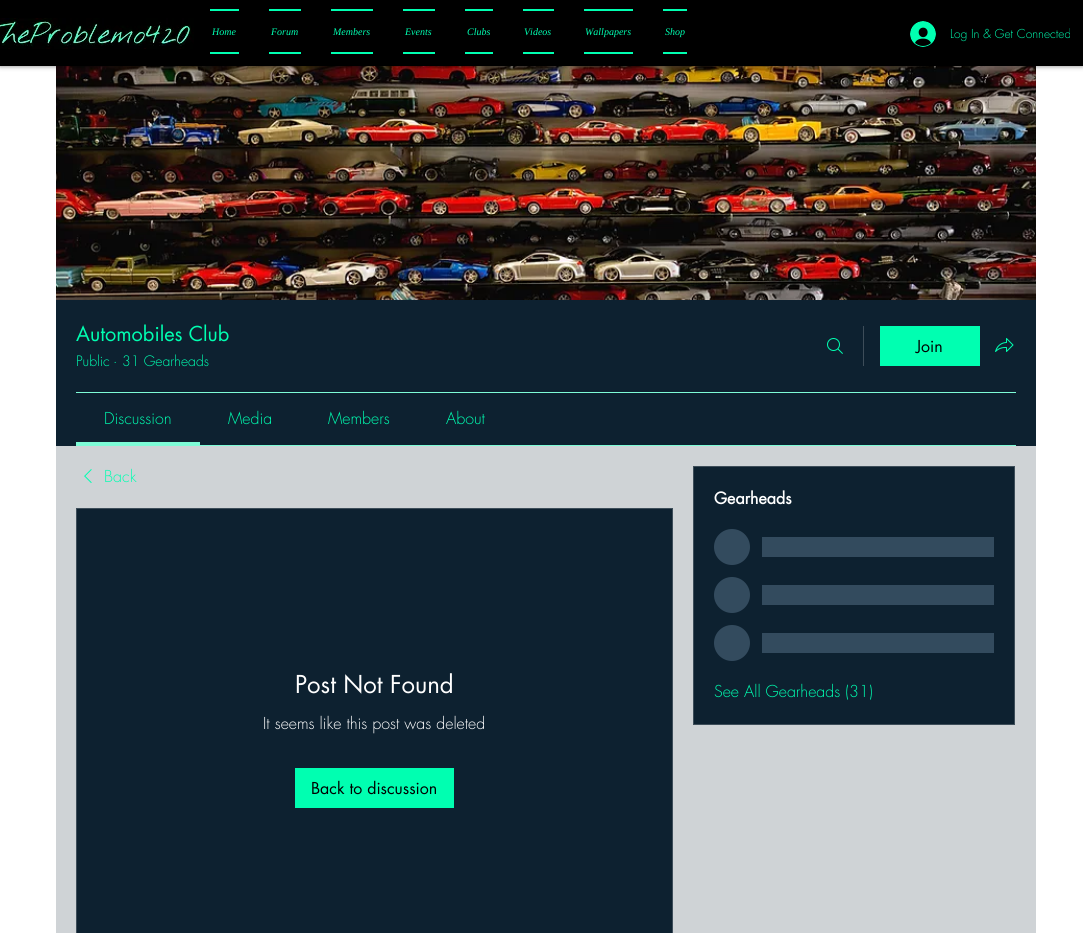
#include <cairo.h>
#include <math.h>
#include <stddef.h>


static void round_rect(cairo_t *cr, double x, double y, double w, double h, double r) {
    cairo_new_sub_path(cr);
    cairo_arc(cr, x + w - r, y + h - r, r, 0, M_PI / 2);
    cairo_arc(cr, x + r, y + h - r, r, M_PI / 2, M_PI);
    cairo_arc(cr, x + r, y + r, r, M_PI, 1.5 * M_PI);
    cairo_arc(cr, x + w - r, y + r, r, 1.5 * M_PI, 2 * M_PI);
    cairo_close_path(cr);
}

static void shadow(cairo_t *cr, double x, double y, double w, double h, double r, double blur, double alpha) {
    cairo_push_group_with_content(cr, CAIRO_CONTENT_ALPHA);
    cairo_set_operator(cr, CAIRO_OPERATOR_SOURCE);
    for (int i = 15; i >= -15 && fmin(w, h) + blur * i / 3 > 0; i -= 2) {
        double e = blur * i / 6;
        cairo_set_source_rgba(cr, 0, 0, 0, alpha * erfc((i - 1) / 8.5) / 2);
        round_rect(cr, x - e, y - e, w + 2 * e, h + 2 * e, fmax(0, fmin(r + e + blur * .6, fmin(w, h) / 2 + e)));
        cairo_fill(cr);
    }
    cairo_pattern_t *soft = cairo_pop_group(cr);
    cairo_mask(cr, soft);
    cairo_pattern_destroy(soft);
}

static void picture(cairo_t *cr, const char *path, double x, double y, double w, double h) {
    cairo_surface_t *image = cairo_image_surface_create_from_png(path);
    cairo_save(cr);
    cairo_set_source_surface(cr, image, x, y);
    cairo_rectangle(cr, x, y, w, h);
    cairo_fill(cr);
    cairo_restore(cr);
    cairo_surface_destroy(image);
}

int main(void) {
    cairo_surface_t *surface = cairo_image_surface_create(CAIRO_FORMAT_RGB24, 1083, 933);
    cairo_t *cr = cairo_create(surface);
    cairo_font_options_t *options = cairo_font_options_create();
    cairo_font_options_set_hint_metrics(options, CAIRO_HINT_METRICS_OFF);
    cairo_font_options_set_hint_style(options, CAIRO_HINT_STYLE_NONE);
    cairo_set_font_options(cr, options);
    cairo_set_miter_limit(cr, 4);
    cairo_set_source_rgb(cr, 1, 1, 1);
    cairo_paint(cr);
    picture(cr, "img3.png", 56, 66, 980, 234);
    cairo_set_source_rgb(cr, 0, 0, 0);
    shadow(cr, 0, 0, 1083, 66, 0, 2.5, 0.5);
    cairo_set_source_rgb(cr, 0, 0, 0);
    cairo_rectangle(cr, 0, 0, 1083, 66);
    cairo_fill(cr);
    picture(cr, "img1.png", 0, 18, 194, 31);
    cairo_set_source_rgb(cr, 0, 1, 0.694);
    cairo_rectangle(cr, 210, 9, 29, 2);
    cairo_fill(cr);
    cairo_rectangle(cr, 210, 52, 29, 2);
    cairo_fill(cr);
    cairo_select_font_face(cr, "Liberation Serif", CAIRO_FONT_SLANT_ITALIC, CAIRO_FONT_WEIGHT_NORMAL);
    cairo_set_font_size(cr, 10);
    cairo_move_to(cr, 212, 35);
    cairo_show_text(cr, "Home");
    cairo_rectangle(cr, 269, 9, 32, 2);
    cairo_fill(cr);
    cairo_rectangle(cr, 269, 52, 32, 2);
    cairo_fill(cr);
    cairo_move_to(cr, 271, 35);
    cairo_show_text(cr, "Forum");
    cairo_rectangle(cr, 331, 9, 42, 2);
    cairo_fill(cr);
    cairo_rectangle(cr, 331, 52, 42, 2);
    cairo_fill(cr);
    cairo_move_to(cr, 333, 35);
    cairo_show_text(cr, "Members");
    cairo_rectangle(cr, 403, 9, 32, 2);
    cairo_fill(cr);
    cairo_rectangle(cr, 403, 52, 32, 2);
    cairo_fill(cr);
    cairo_move_to(cr, 405, 35);
    cairo_show_text(cr, "Events");
    cairo_rectangle(cr, 465, 9, 28, 2);
    cairo_fill(cr);
    cairo_rectangle(cr, 465, 52, 28, 2);
    cairo_fill(cr);
    cairo_move_to(cr, 467, 35);
    cairo_show_text(cr, "Clubs");
    cairo_rectangle(cr, 523, 9, 31, 2);
    cairo_fill(cr);
    cairo_rectangle(cr, 523, 52, 31, 2);
    cairo_fill(cr);
    cairo_move_to(cr, 524, 35);
    cairo_show_text(cr, "Videos");
    cairo_rectangle(cr, 584, 9, 49, 2);
    cairo_fill(cr);
    cairo_rectangle(cr, 584, 52, 49, 2);
    cairo_fill(cr);
    cairo_move_to(cr, 585, 35);
    cairo_show_text(cr, "Wallpapers");
    cairo_rectangle(cr, 663, 9, 24, 2);
    cairo_fill(cr);
    cairo_rectangle(cr, 663, 52, 24, 2);
    cairo_fill(cr);
    cairo_move_to(cr, 665, 35);
    cairo_show_text(cr, "Shop");
    picture(cr, "img2.png", 910, 21, 26, 26);
    cairo_select_font_face(cr, "futura Light", CAIRO_FONT_SLANT_NORMAL, CAIRO_FONT_WEIGHT_NORMAL);
    cairo_set_font_size(cr, 12);
    cairo_move_to(cr, 950, 38);
    cairo_show_text(cr, "Log In & Get Connected");
    cairo_set_source_rgb(cr, 0.812, 0.827, 0.839);
    cairo_rectangle(cr, 56, 446, 980, 487);
    cairo_fill(cr);
    cairo_set_source_rgb(cr, 0.051, 0.129, 0.188);
    cairo_rectangle(cr, 56, 300, 980, 146);
    cairo_fill(cr);
    cairo_select_font_face(cr, "futura", CAIRO_FONT_SLANT_NORMAL, CAIRO_FONT_WEIGHT_NORMAL);
    cairo_set_font_size(cr, 20);
    cairo_set_source_rgb(cr, 0, 1, 0.694);
    cairo_move_to(cr, 76, 341);
    cairo_show_text(cr, "Automobiles Club");
    cairo_select_font_face(cr, "futura Light", CAIRO_FONT_SLANT_NORMAL, CAIRO_FONT_WEIGHT_NORMAL);
    cairo_set_font_size(cr, 14);
    cairo_move_to(cr, 76, 366);
    cairo_show_text(cr, "Public");
    cairo_move_to(cr, 113, 366);
    cairo_show_text(cr, "·");
    cairo_move_to(cr, 122, 366);
    cairo_show_text(cr, "31 Gearheads");
    picture(cr, "img4.png", 827, 338, 16, 16);
    cairo_set_source_rgb(cr, 0.239, 0.302, 0.349);
    cairo_rectangle(cr, 863, 326, 1, 40);
    cairo_fill(cr);
    cairo_set_source_rgb(cr, 0, 1, 0.694);
    cairo_rectangle(cr, 880, 326, 100, 40);
    cairo_fill(cr);
    cairo_select_font_face(cr, "futura", CAIRO_FONT_SLANT_NORMAL, CAIRO_FONT_WEIGHT_NORMAL);
    cairo_set_font_size(cr, 16);
    cairo_set_source_rgb(cr, 0, 0, 0);
    cairo_move_to(cr, 916, 352);
    cairo_show_text(cr, "Join");
    picture(cr, "img5.png", 995, 338, 19, 14);
    cairo_set_source_rgb(cr, 0.494, 0.988, 0.843);
    cairo_rectangle(cr, 76, 392, 940, 1);
    cairo_fill(cr);
    cairo_rectangle(cr, 76, 445, 940, 1);
    cairo_fill(cr);
    cairo_rectangle(cr, 76, 442, 124, 3);
    cairo_fill(cr);
    cairo_select_font_face(cr, "futura Light", CAIRO_FONT_SLANT_NORMAL, CAIRO_FONT_WEIGHT_NORMAL);
    cairo_set_source_rgb(cr, 0, 1, 0.694);
    cairo_move_to(cr, 104, 424);
    cairo_show_text(cr, "Discussion");
    cairo_move_to(cr, 228, 424);
    cairo_show_text(cr, "Media");
    cairo_move_to(cr, 328, 424);
    cairo_show_text(cr, "Members");
    cairo_move_to(cr, 446, 424);
    cairo_show_text(cr, "About");
    picture(cr, "img6.png", 84, 469, 8, 14);
    cairo_move_to(cr, 104, 482);
    cairo_show_text(cr, "Back");
    cairo_set_source_rgb(cr, 0.051, 0.129, 0.188);
    cairo_rectangle(cr, 76.5, 508.5, 596, 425);
    cairo_fill_preserve(cr);
    cairo_set_source_rgb(cr, 0.239, 0.302, 0.349);
    cairo_set_line_width(cr, 1);
    cairo_stroke(cr);
    cairo_select_font_face(cr, "futura", CAIRO_FONT_SLANT_NORMAL, CAIRO_FONT_WEIGHT_NORMAL);
    cairo_set_font_size(cr, 24);
    cairo_set_source_rgb(cr, 1, 1, 1);
    cairo_move_to(cr, 295, 693);
    cairo_show_text(cr, "Post Not Found");
    cairo_select_font_face(cr, "futura Light", CAIRO_FONT_SLANT_NORMAL, CAIRO_FONT_WEIGHT_NORMAL);
    cairo_set_font_size(cr, 16);
    cairo_move_to(cr, 263, 729);
    cairo_show_text(cr, "It seems like this post was deleted");
    cairo_set_source_rgb(cr, 0, 1, 0.694);
    cairo_rectangle(cr, 295, 768, 159, 40);
    cairo_fill(cr);
    cairo_select_font_face(cr, "futura", CAIRO_FONT_SLANT_NORMAL, CAIRO_FONT_WEIGHT_NORMAL);
    cairo_set_source_rgb(cr, 0, 0, 0);
    cairo_move_to(cr, 311, 794);
    cairo_show_text(cr, "Back to discussion");
    cairo_set_source_rgb(cr, 0.051, 0.129, 0.188);
    cairo_rectangle(cr, 693.5, 466.5, 321, 258);
    cairo_fill_preserve(cr);
    cairo_set_source_rgb(cr, 0.239, 0.302, 0.349);
    cairo_stroke(cr);
    cairo_select_font_face(cr, "futura", CAIRO_FONT_SLANT_NORMAL, CAIRO_FONT_WEIGHT_BOLD);
    cairo_set_source_rgb(cr, 1, 1, 1);
    cairo_move_to(cr, 714, 504);
    cairo_show_text(cr, "Gearheads");
    cairo_set_source_rgb(cr, 0.2, 0.294, 0.369);
    cairo_new_path(cr);
    cairo_arc(cr, 732, 547, 18, 0, 2 * M_PI);
    cairo_fill(cr);
    cairo_rectangle(cr, 762, 537, 232, 20);
    cairo_fill(cr);
    cairo_arc(cr, 732, 595, 18, 0, 2 * M_PI);
    cairo_fill(cr);
    cairo_rectangle(cr, 762, 585, 232, 20);
    cairo_fill(cr);
    cairo_arc(cr, 732, 643, 18, 0, 2 * M_PI);
    cairo_fill(cr);
    cairo_rectangle(cr, 762, 633, 232, 20);
    cairo_fill(cr);
    cairo_select_font_face(cr, "futura Light", CAIRO_FONT_SLANT_NORMAL, CAIRO_FONT_WEIGHT_NORMAL);
    cairo_set_source_rgb(cr, 0, 1, 0.694);
    cairo_move_to(cr, 714, 697);
    cairo_show_text(cr, "See All Gearheads (31)");
    cairo_surface_write_to_png(surface, "page.png");
    cairo_font_options_destroy(options);
    cairo_destroy(cr);
    cairo_surface_destroy(surface);
    return 0;
}
